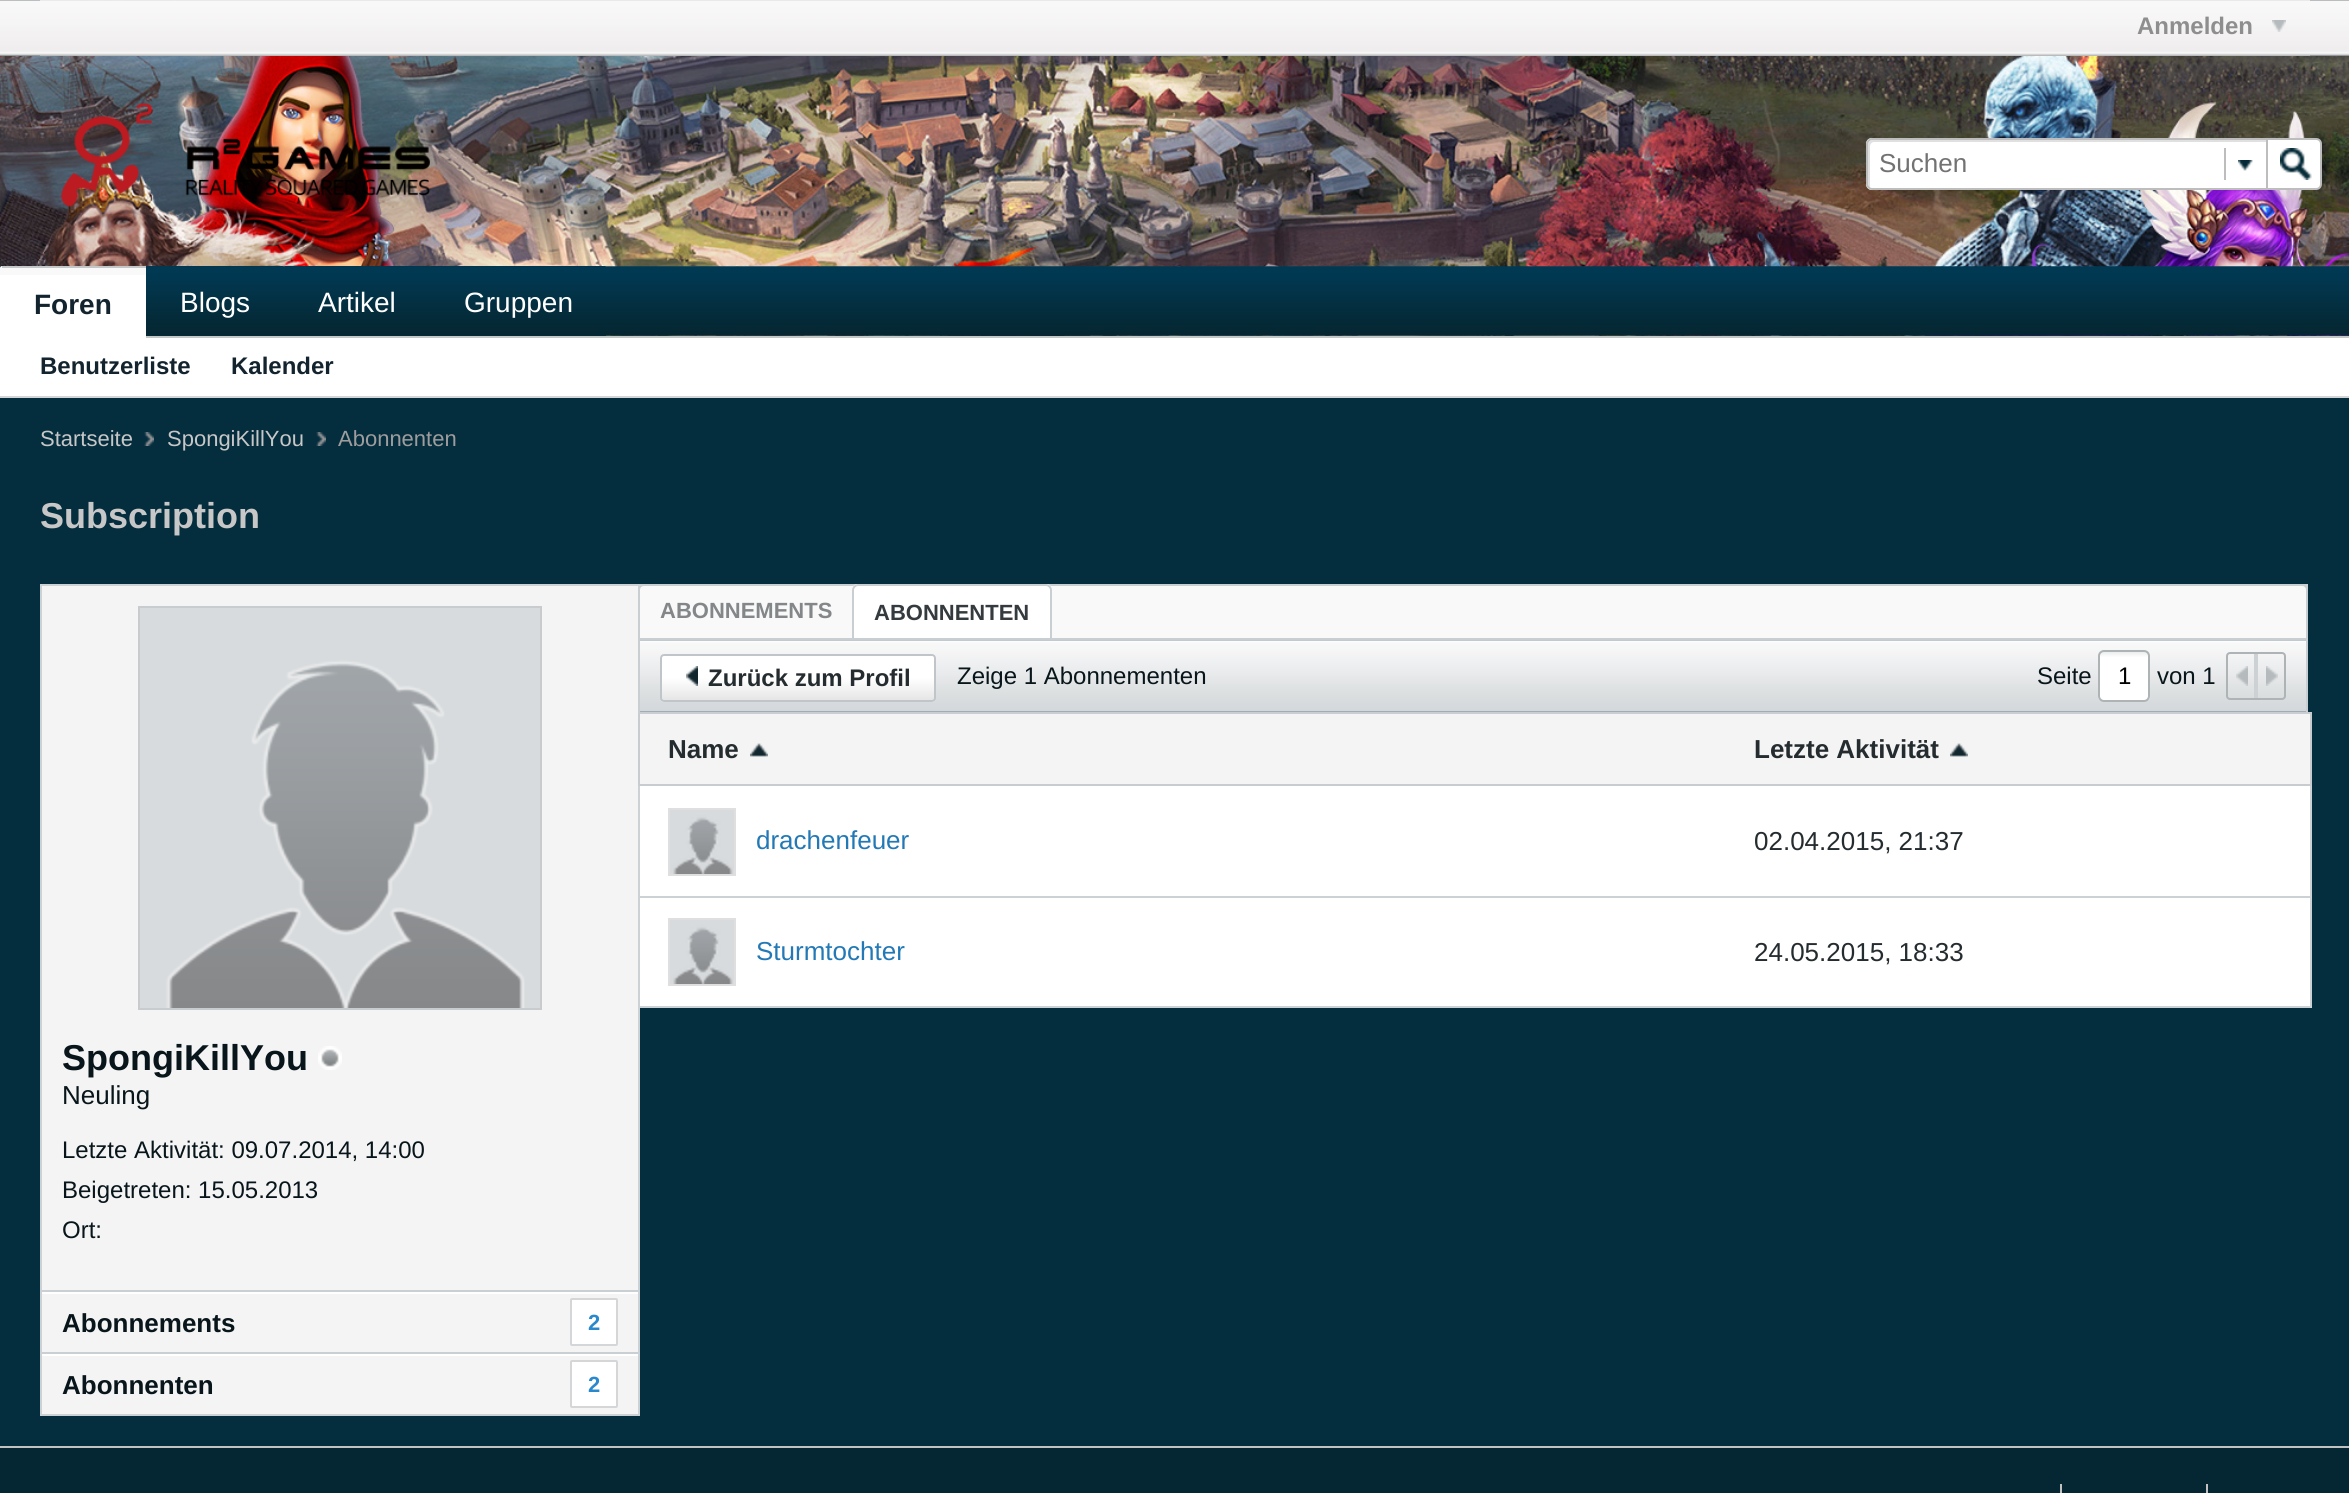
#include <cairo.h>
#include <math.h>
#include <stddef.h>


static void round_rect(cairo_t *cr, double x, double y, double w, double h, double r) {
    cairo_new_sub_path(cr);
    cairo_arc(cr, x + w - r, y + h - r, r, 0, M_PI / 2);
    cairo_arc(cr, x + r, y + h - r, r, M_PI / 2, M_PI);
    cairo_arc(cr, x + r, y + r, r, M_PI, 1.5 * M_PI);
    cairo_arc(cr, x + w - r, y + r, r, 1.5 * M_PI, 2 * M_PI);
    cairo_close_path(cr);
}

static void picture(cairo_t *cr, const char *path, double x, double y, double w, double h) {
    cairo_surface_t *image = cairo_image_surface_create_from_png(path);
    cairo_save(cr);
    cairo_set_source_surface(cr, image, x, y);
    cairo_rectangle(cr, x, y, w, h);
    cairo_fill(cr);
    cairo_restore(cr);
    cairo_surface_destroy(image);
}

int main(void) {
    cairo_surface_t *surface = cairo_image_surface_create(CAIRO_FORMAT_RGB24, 2349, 1493);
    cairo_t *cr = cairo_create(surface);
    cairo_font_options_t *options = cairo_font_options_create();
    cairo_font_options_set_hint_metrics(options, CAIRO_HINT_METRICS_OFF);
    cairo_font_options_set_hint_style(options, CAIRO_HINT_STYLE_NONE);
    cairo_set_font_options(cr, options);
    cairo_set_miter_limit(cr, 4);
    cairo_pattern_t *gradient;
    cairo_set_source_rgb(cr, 1, 1, 1);
    cairo_paint(cr);
    picture(cr, "img1.png", 0, 0, 2349, 56);
    picture(cr, "img2.png", 0, 0, 2349, 56);
    picture(cr, "img3.png", 40, 0, 2270, 56);
    cairo_select_font_face(cr, "Liberation Sans", CAIRO_FONT_SLANT_NORMAL, CAIRO_FONT_WEIGHT_BOLD);
    cairo_set_font_size(cr, 24);
    cairo_set_source_rgb(cr, 0.557, 0.557, 0.557);
    cairo_move_to(cr, 2137, 34);
    cairo_show_text(cr, "Anmelden");
    picture(cr, "img4.png", 2272, 20, 14, 12);
    picture(cr, "img5.png", 0, 56, 2349, 280);
    picture(cr, "img6.png", 60, 103, 370, 104);
    cairo_set_source_rgb(cr, 1, 1, 1);
    cairo_new_path(cr);
    cairo_move_to(cr, 1872, 138);
    cairo_line_to(cr, 2266, 138);
    cairo_line_to(cr, 2266, 190);
    cairo_line_to(cr, 1872, 190);
    cairo_curve_to(cr, 1868.5, 190, 1866, 187.5, 1866, 184);
    cairo_line_to(cr, 1866, 144);
    cairo_curve_to(cr, 1866, 140.5, 1868.5, 138, 1872, 138);
    cairo_close_path(cr);
    cairo_fill(cr);
    cairo_set_source_rgb(cr, 0.878, 0.878, 0.878);
    cairo_new_path(cr);
    cairo_move_to(cr, 1874, 142);
    cairo_line_to(cr, 2266, 142);
    cairo_line_to(cr, 2266, 140);
    cairo_line_to(cr, 1872, 140);
    cairo_curve_to(cr, 1870, 140, 1868, 142, 1868, 144);
    cairo_line_to(cr, 1868, 184);
    cairo_curve_to(cr, 1868, 186, 1869, 187, 1870, 188);
    cairo_line_to(cr, 1870, 186);
    cairo_line_to(cr, 1870, 146);
    cairo_curve_to(cr, 1870, 144, 1872, 142, 1874, 142);
    cairo_close_path(cr);
    cairo_fill(cr);
    cairo_set_source_rgb(cr, 0.741, 0.741, 0.741);
    cairo_set_fill_rule(cr, CAIRO_FILL_RULE_EVEN_ODD);
    cairo_new_path(cr);
    cairo_move_to(cr, 1872, 138);
    cairo_line_to(cr, 2266, 138);
    cairo_line_to(cr, 2266, 190);
    cairo_line_to(cr, 1872, 190);
    cairo_curve_to(cr, 1869, 190, 1866, 187, 1866, 184);
    cairo_line_to(cr, 1866, 144);
    cairo_curve_to(cr, 1866, 141, 1869, 138, 1872, 138);
    cairo_close_path(cr);
    cairo_move_to(cr, 1872, 140);
    cairo_line_to(cr, 2266, 140);
    cairo_line_to(cr, 2266, 188);
    cairo_line_to(cr, 1872, 188);
    cairo_curve_to(cr, 1870, 188, 1868, 186, 1868, 184);
    cairo_line_to(cr, 1868, 144);
    cairo_curve_to(cr, 1868, 142, 1870, 140, 1872, 140);
    cairo_close_path(cr);
    cairo_fill(cr);
    cairo_select_font_face(cr, "Liberation Sans", CAIRO_FONT_SLANT_NORMAL, CAIRO_FONT_WEIGHT_NORMAL);
    cairo_set_font_size(cr, 26);
    cairo_set_source_rgb(cr, 0.447, 0.447, 0.447);
    cairo_move_to(cr, 1879, 172);
    cairo_show_text(cr, "Suchen");
    cairo_set_source_rgb(cr, 0.741, 0.741, 0.741);
    cairo_rectangle(cr, 2224, 148, 2, 32);
    cairo_fill(cr);
    picture(cr, "img7.png", 2238, 160, 15, 11);
    cairo_set_source_rgb(cr, 1, 1, 1);
    cairo_new_path(cr);
    cairo_move_to(cr, 2267, 139);
    cairo_line_to(cr, 2316, 139);
    cairo_curve_to(cr, 2319, 139, 2321, 141, 2321, 144);
    cairo_line_to(cr, 2321, 184);
    cairo_curve_to(cr, 2321, 187, 2319, 189, 2316, 189);
    cairo_line_to(cr, 2267, 189);
    cairo_close_path(cr);
    cairo_fill_preserve(cr);
    cairo_set_source_rgb(cr, 0.741, 0.741, 0.741);
    cairo_stroke(cr);
    picture(cr, "img8.png", 2280, 148, 32, 32);
    picture(cr, "img9.png", 0, 266, 2349, 70);
    cairo_set_source_rgb(cr, 0.769, 0.78, 0.784);
    cairo_rectangle(cr, 146, 336, 2203, 2);
    cairo_fill(cr);
    cairo_set_source_rgb(cr, 1, 1, 1);
    cairo_new_path(cr);
    cairo_move_to(cr, 2, 266);
    cairo_line_to(cr, 144, 266);
    cairo_curve_to(cr, 145, 266, 146, 267, 146, 268);
    cairo_line_to(cr, 146, 338);
    cairo_line_to(cr, 0, 338);
    cairo_line_to(cr, 0, 268);
    cairo_curve_to(cr, 0, 267, 1, 266, 2, 266);
    cairo_close_path(cr);
    cairo_fill(cr);
    cairo_set_source_rgb(cr, 0.973, 0.973, 0.973);
    cairo_rectangle(cr, 0, 268, 146, 7);
    cairo_fill(cr);
    cairo_set_source_rgb(cr, 0.769, 0.78, 0.784);
    cairo_rectangle(cr, 2, 266, 144, 2);
    cairo_fill(cr);
    cairo_select_font_face(cr, "Liberation Sans", CAIRO_FONT_SLANT_NORMAL, CAIRO_FONT_WEIGHT_BOLD);
    cairo_set_font_size(cr, 28);
    cairo_set_source_rgb(cr, 0.075, 0.141, 0.184);
    cairo_move_to(cr, 34, 314);
    cairo_show_text(cr, "Foren");
    cairo_set_source_rgb(cr, 0.012, 0.192, 0.271);
    cairo_new_path(cr);
    cairo_move_to(cr, 148, 266);
    cairo_line_to(cr, 282, 266);
    cairo_curve_to(cr, 283, 266, 284, 267, 284, 268);
    cairo_line_to(cr, 284, 336);
    cairo_line_to(cr, 146, 336);
    cairo_line_to(cr, 146, 268);
    cairo_curve_to(cr, 146, 267, 147, 266, 148, 266);
    cairo_close_path(cr);
    cairo_fill(cr);
    picture(cr, "img10.png", 146, 266, 138, 70);
    cairo_select_font_face(cr, "Liberation Sans", CAIRO_FONT_SLANT_NORMAL, CAIRO_FONT_WEIGHT_NORMAL);
    cairo_set_source_rgb(cr, 1, 1, 1);
    cairo_move_to(cr, 180, 312);
    cairo_show_text(cr, "Blogs");
    cairo_set_source_rgb(cr, 0.012, 0.192, 0.271);
    cairo_new_path(cr);
    cairo_move_to(cr, 286, 266);
    cairo_line_to(cr, 428, 266);
    cairo_curve_to(cr, 429, 266, 430, 267, 430, 268);
    cairo_line_to(cr, 430, 336);
    cairo_line_to(cr, 284, 336);
    cairo_line_to(cr, 284, 268);
    cairo_curve_to(cr, 284, 267, 285, 266, 286, 266);
    cairo_close_path(cr);
    cairo_fill(cr);
    picture(cr, "img11.png", 284, 266, 146, 70);
    cairo_set_source_rgb(cr, 1, 1, 1);
    cairo_move_to(cr, 318, 312);
    cairo_show_text(cr, "Artikel");
    cairo_set_source_rgb(cr, 0.012, 0.192, 0.271);
    cairo_new_path(cr);
    cairo_move_to(cr, 432, 266);
    cairo_line_to(cr, 604, 266);
    cairo_curve_to(cr, 605, 266, 606, 267, 606, 268);
    cairo_line_to(cr, 606, 336);
    cairo_line_to(cr, 430, 336);
    cairo_line_to(cr, 430, 268);
    cairo_curve_to(cr, 430, 267, 431, 266, 432, 266);
    cairo_close_path(cr);
    cairo_fill(cr);
    picture(cr, "img12.png", 430, 266, 176, 70);
    cairo_set_source_rgb(cr, 1, 1, 1);
    cairo_move_to(cr, 464, 312);
    cairo_show_text(cr, "Gruppen");
    cairo_set_source_rgb(cr, 0.827, 0.835, 0.839);
    cairo_rectangle(cr, 0, 396, 2349, 2);
    cairo_fill(cr);
    cairo_select_font_face(cr, "Liberation Sans", CAIRO_FONT_SLANT_NORMAL, CAIRO_FONT_WEIGHT_BOLD);
    cairo_set_font_size(cr, 24);
    cairo_set_source_rgb(cr, 0.075, 0.141, 0.184);
    cairo_move_to(cr, 40, 374);
    cairo_show_text(cr, "Benutzerliste");
    cairo_move_to(cr, 231, 374);
    cairo_show_text(cr, "Kalender");
    cairo_set_source_rgb(cr, 0.016, 0.176, 0.243);
    cairo_rectangle(cr, 0, 398, 2349, 1048);
    cairo_fill(cr);
    cairo_select_font_face(cr, "Liberation Sans", CAIRO_FONT_SLANT_NORMAL, CAIRO_FONT_WEIGHT_NORMAL);
    cairo_set_font_size(cr, 22);
    cairo_set_source_rgb(cr, 0.78, 0.78, 0.78);
    cairo_move_to(cr, 40, 446);
    cairo_show_text(cr, "Startseite");
    picture(cr, "img13.png", 144, 432, 10, 14);
    cairo_move_to(cr, 167, 446);
    cairo_show_text(cr, "SpongiKillYou");
    picture(cr, "img13.png", 316, 432, 10, 14);
    cairo_set_source_rgb(cr, 0.62, 0.616, 0.616);
    cairo_move_to(cr, 338, 446);
    cairo_show_text(cr, "Abonnenten");
    cairo_select_font_face(cr, "Liberation Sans", CAIRO_FONT_SLANT_NORMAL, CAIRO_FONT_WEIGHT_BOLD);
    cairo_set_font_size(cr, 36);
    cairo_set_source_rgb(cr, 0.78, 0.78, 0.78);
    cairo_move_to(cr, 40, 528);
    cairo_show_text(cr, "Subscription");
    cairo_rectangle(cr, 41, 585, 598, 830);
    cairo_set_source_rgb(cr, 0.8, 0.82, 0.835);
    cairo_stroke(cr);
    cairo_rectangle(cr, 639, 585, 1668, 422);
    cairo_stroke(cr);
    cairo_set_source_rgb(cr, 0.976, 0.976, 0.976);
    cairo_new_path(cr);
    cairo_move_to(cr, 644, 585);
    cairo_line_to(cr, 2302, 585);
    cairo_curve_to(cr, 2305, 585, 2307, 587, 2307, 590);
    cairo_line_to(cr, 2307, 639);
    cairo_line_to(cr, 639, 639);
    cairo_line_to(cr, 639, 590);
    cairo_curve_to(cr, 639, 587, 641, 585, 644, 585);
    cairo_close_path(cr);
    cairo_fill_preserve(cr);
    cairo_set_source_rgb(cr, 0.788, 0.808, 0.824);
    cairo_stroke(cr);
    cairo_set_font_size(cr, 22);
    cairo_set_source_rgb(cr, 0.514, 0.529, 0.537);
    cairo_move_to(cr, 660, 618);
    cairo_show_text(cr, "ABONNEMENTS");
    cairo_set_source_rgb(cr, 1, 1, 1);
    cairo_new_path(cr);
    cairo_move_to(cr, 858, 584);
    cairo_line_to(cr, 1046, 584);
    cairo_curve_to(cr, 1049.5, 584, 1052, 586.5, 1052, 590);
    cairo_line_to(cr, 1052, 638);
    cairo_line_to(cr, 852, 638);
    cairo_line_to(cr, 852, 590);
    cairo_curve_to(cr, 852, 586.5, 854.5, 584, 858, 584);
    cairo_close_path(cr);
    cairo_fill(cr);
    cairo_set_source_rgb(cr, 0.788, 0.808, 0.824);
    cairo_new_path(cr);
    cairo_move_to(cr, 858, 584);
    cairo_line_to(cr, 1046, 584);
    cairo_curve_to(cr, 1049, 584, 1052, 587, 1052, 590);
    cairo_line_to(cr, 1052, 638);
    cairo_line_to(cr, 852, 638);
    cairo_line_to(cr, 852, 590);
    cairo_curve_to(cr, 852, 587, 855, 584, 858, 584);
    cairo_close_path(cr);
    cairo_move_to(cr, 858, 586);
    cairo_line_to(cr, 1046, 586);
    cairo_curve_to(cr, 1048, 586, 1050, 588, 1050, 590);
    cairo_line_to(cr, 1050, 638);
    cairo_line_to(cr, 854, 638);
    cairo_line_to(cr, 854, 590);
    cairo_curve_to(cr, 854, 588, 856, 586, 858, 586);
    cairo_close_path(cr);
    cairo_fill(cr);
    cairo_set_source_rgb(cr, 0.204, 0.227, 0.239);
    cairo_move_to(cr, 874, 620);
    cairo_show_text(cr, "ABONNENTEN");
    picture(cr, "img14.png", 640, 640, 1666, 72);
    cairo_set_source_rgb(cr, 0.957, 0.957, 0.957);
    cairo_rectangle(cr, 639, 713, 1672, 72);
    cairo_fill_preserve(cr);
    cairo_set_source_rgb(cr, 0.784, 0.8, 0.808);
    cairo_stroke(cr);
    cairo_rectangle(cr, 639, 639, 1668, 74);
    cairo_set_source_rgb(cr, 0.788, 0.808, 0.824);
    cairo_stroke(cr);
    cairo_set_source_rgb(cr, 1, 1, 1);
    round_rect(cr, 660, 654, 276, 48, 4);
    cairo_fill(cr);
    gradient = cairo_pattern_create_linear(798, 700, 798, 656);
    cairo_pattern_add_color_stop_rgba(gradient, 0, 0, 0, 0, 0.1);
    cairo_pattern_add_color_stop_rgba(gradient, 0.5, 0, 0, 0, 0);
    cairo_pattern_add_color_stop_rgba(gradient, 0.5, 1, 1, 1, 0);
    cairo_pattern_add_color_stop_rgba(gradient, 1, 1, 1, 1, 0.7);
    cairo_set_source(cr, gradient);
    cairo_pattern_destroy(gradient);
    cairo_rectangle(cr, 660, 656, 276, 44);
    cairo_fill(cr);
    round_rect(cr, 661, 655, 274, 46, 3);
    cairo_set_source_rgb(cr, 0.749, 0.773, 0.788);
    cairo_stroke(cr);
    picture(cr, "img15.png", 686, 666, 12, 20);
    cairo_set_font_size(cr, 24);
    cairo_set_source_rgb(cr, 0.145, 0.173, 0.184);
    cairo_move_to(cr, 708, 686);
    cairo_show_text(cr, "Zurück zum Profil");
    cairo_select_font_face(cr, "Liberation Sans", CAIRO_FONT_SLANT_NORMAL, CAIRO_FONT_WEIGHT_NORMAL);
    cairo_set_source_rgb(cr, 0.035, 0.086, 0.106);
    cairo_move_to(cr, 957, 684);
    cairo_show_text(cr, "Zeige 1 Abonnementen");
    cairo_move_to(cr, 2037, 684);
    cairo_show_text(cr, "Seite");
    cairo_save(cr);
    cairo_set_fill_rule(cr, CAIRO_FILL_RULE_WINDING);
    round_rect(cr, 2098, 650, 52, 52, 6);
    cairo_clip(cr);
    gradient = cairo_pattern_create_linear(2124, 652, 2124, 700);
    cairo_pattern_add_color_stop_rgba(gradient, 0.01, 0.929, 0.933, 0.937, 1);
    cairo_pattern_add_color_stop_rgba(gradient, 0.11, 1, 1, 1, 1);
    cairo_set_source(cr, gradient);
    cairo_pattern_destroy(gradient);
    cairo_rectangle(cr, 2098, 652, 52, 48);
    cairo_fill(cr);
    cairo_restore(cr);
    round_rect(cr, 2099, 651, 50, 50, 5);
    cairo_set_source_rgb(cr, 0.682, 0.702, 0.714);
    cairo_stroke(cr);
    cairo_set_source_rgb(cr, 0, 0, 0);
    cairo_move_to(cr, 2118, 684);
    cairo_show_text(cr, "1");
    cairo_set_source_rgb(cr, 0.035, 0.086, 0.106);
    cairo_move_to(cr, 2157, 684);
    cairo_show_text(cr, "von 1");
    round_rect(cr, 2227, 653, 58, 46, 3);
    cairo_set_source_rgb(cr, 0.682, 0.702, 0.714);
    cairo_stroke(cr);
    cairo_set_source_rgb(cr, 0.804, 0.82, 0.831);
    cairo_rectangle(cr, 2254, 654, 4, 44);
    cairo_fill(cr);
    picture(cr, "img16.png", 2236, 666, 12, 20);
    picture(cr, "img17.png", 2266, 666, 12, 20);
    cairo_select_font_face(cr, "Liberation Sans", CAIRO_FONT_SLANT_NORMAL, CAIRO_FONT_WEIGHT_BOLD);
    cairo_set_font_size(cr, 26);
    cairo_set_source_rgb(cr, 0.145, 0.173, 0.184);
    cairo_move_to(cr, 668, 758);
    cairo_show_text(cr, "Name");
    picture(cr, "img18.png", 750, 743, 18, 14);
    cairo_move_to(cr, 1754, 758);
    cairo_show_text(cr, "Letzte Aktivität");
    picture(cr, "img18.png", 1950, 743, 18, 14);
    cairo_set_source_rgb(cr, 0.8, 0.82, 0.835);
    cairo_rectangle(cr, 2310, 786, 2, 222);
    cairo_fill(cr);
    cairo_rectangle(cr, 2308, 1006, 4, 2);
    cairo_fill(cr);
    cairo_set_source_rgb(cr, 1, 1, 1);
    cairo_rectangle(cr, 640, 786, 1670, 110);
    cairo_fill(cr);
    cairo_rectangle(cr, 669, 809, 66, 66);
    cairo_set_source_rgb(cr, 0.875, 0.875, 0.875);
    cairo_stroke(cr);
    picture(cr, "img19.png", 670, 810, 64, 64);
    cairo_select_font_face(cr, "Liberation Sans", CAIRO_FONT_SLANT_NORMAL, CAIRO_FONT_WEIGHT_NORMAL);
    cairo_set_source_rgb(cr, 0.137, 0.475, 0.71);
    cairo_move_to(cr, 756, 849);
    cairo_show_text(cr, "drachenfeuer");
    cairo_set_source_rgb(cr, 0.145, 0.173, 0.184);
    cairo_move_to(cr, 1754, 850);
    cairo_show_text(cr, "02.04.2015, 21:37");
    cairo_set_source_rgb(cr, 1, 1, 1);
    cairo_rectangle(cr, 640, 898, 1670, 108);
    cairo_fill(cr);
    cairo_set_source_rgb(cr, 0.8, 0.82, 0.835);
    cairo_rectangle(cr, 640, 896, 1670, 2);
    cairo_fill(cr);
    cairo_rectangle(cr, 669, 919, 66, 66);
    cairo_set_source_rgb(cr, 0.875, 0.875, 0.875);
    cairo_stroke(cr);
    picture(cr, "img19.png", 670, 920, 64, 64);
    cairo_set_source_rgb(cr, 0.137, 0.475, 0.71);
    cairo_move_to(cr, 756, 960);
    cairo_show_text(cr, "Sturmtochter");
    cairo_set_source_rgb(cr, 0.145, 0.173, 0.184);
    cairo_move_to(cr, 1754, 961);
    cairo_show_text(cr, "24.05.2015, 18:33");
    cairo_set_source_rgb(cr, 0.957, 0.957, 0.957);
    cairo_rectangle(cr, 42, 586, 596, 828);
    cairo_fill(cr);
    cairo_rectangle(cr, 139, 607, 402, 402);
    cairo_set_source_rgb(cr, 0.784, 0.8, 0.808);
    cairo_stroke(cr);
    picture(cr, "img20.png", 140, 608, 400, 400);
    cairo_select_font_face(cr, "Liberation Sans", CAIRO_FONT_SLANT_NORMAL, CAIRO_FONT_WEIGHT_BOLD);
    cairo_set_font_size(cr, 36);
    cairo_set_source_rgb(cr, 0.035, 0.086, 0.106);
    cairo_move_to(cr, 62, 1070);
    cairo_show_text(cr, "SpongiKillYou");
    picture(cr, "img21.png", 318, 1046, 24, 24);
    cairo_select_font_face(cr, "Liberation Sans", CAIRO_FONT_SLANT_NORMAL, CAIRO_FONT_WEIGHT_NORMAL);
    cairo_set_font_size(cr, 26);
    cairo_move_to(cr, 62, 1104);
    cairo_show_text(cr, "Neuling");
    cairo_set_font_size(cr, 24);
    cairo_move_to(cr, 62, 1158);
    cairo_show_text(cr, "Letzte Aktivität: 09.07.2014, 14:00");
    cairo_move_to(cr, 62, 1198);
    cairo_show_text(cr, "Beigetreten: 15.05.2013");
    cairo_move_to(cr, 62, 1238);
    cairo_show_text(cr, "Ort:");
    cairo_set_source_rgb(cr, 0.792, 0.812, 0.827);
    cairo_rectangle(cr, 42, 1290, 596, 2);
    cairo_fill(cr);
    cairo_set_source_rgb(cr, 1, 1, 1);
    cairo_rectangle(cr, 42, 1292, 596, 2);
    cairo_fill(cr);
    cairo_set_source_rgb(cr, 0.792, 0.812, 0.827);
    cairo_rectangle(cr, 42, 1352, 596, 2);
    cairo_fill(cr);
    cairo_select_font_face(cr, "Liberation Sans", CAIRO_FONT_SLANT_NORMAL, CAIRO_FONT_WEIGHT_BOLD);
    cairo_set_font_size(cr, 26);
    cairo_set_source_rgb(cr, 0.035, 0.086, 0.106);
    cairo_move_to(cr, 62, 1332);
    cairo_show_text(cr, "Abonnements");
    cairo_set_source_rgb(cr, 1, 1, 1);
    round_rect(cr, 571, 1299, 46, 46, 1);
    cairo_fill_preserve(cr);
    cairo_set_source_rgb(cr, 0.831, 0.839, 0.843);
    cairo_stroke(cr);
    cairo_set_font_size(cr, 22);
    cairo_set_source_rgb(cr, 0.161, 0.537, 0.8);
    cairo_move_to(cr, 588, 1330);
    cairo_show_text(cr, "2");
    cairo_set_source_rgb(cr, 1, 1, 1);
    cairo_rectangle(cr, 42, 1354, 596, 2);
    cairo_fill(cr);
    cairo_set_font_size(cr, 26);
    cairo_set_source_rgb(cr, 0.035, 0.086, 0.106);
    cairo_move_to(cr, 62, 1394);
    cairo_show_text(cr, "Abonnenten");
    cairo_set_source_rgb(cr, 1, 1, 1);
    round_rect(cr, 571, 1361, 46, 46, 1);
    cairo_fill_preserve(cr);
    cairo_set_source_rgb(cr, 0.831, 0.839, 0.843);
    cairo_stroke(cr);
    cairo_set_font_size(cr, 22);
    cairo_set_source_rgb(cr, 0.161, 0.537, 0.8);
    cairo_move_to(cr, 588, 1392);
    cairo_show_text(cr, "2");
    cairo_set_source_rgb(cr, 0.02, 0.153, 0.2);
    cairo_rectangle(cr, 0, 1448, 2349, 45);
    cairo_fill(cr);
    cairo_set_source_rgb(cr, 0.761, 0.761, 0.761);
    cairo_rectangle(cr, 0, 1446, 2349, 2);
    cairo_fill(cr);
    cairo_rectangle(cr, 2060, 1484, 2, 9);
    cairo_fill(cr);
    cairo_rectangle(cr, 2206, 1484, 2, 9);
    cairo_fill(cr);
    cairo_surface_write_to_png(surface, "page.png");
    cairo_font_options_destroy(options);
    cairo_destroy(cr);
    cairo_surface_destroy(surface);
    return 0;
}
